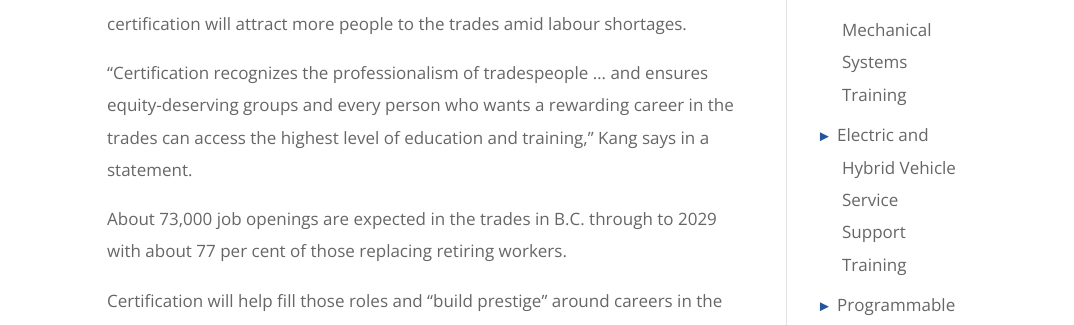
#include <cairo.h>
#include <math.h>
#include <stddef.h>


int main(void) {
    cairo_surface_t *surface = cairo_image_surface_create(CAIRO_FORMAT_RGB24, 1074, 325);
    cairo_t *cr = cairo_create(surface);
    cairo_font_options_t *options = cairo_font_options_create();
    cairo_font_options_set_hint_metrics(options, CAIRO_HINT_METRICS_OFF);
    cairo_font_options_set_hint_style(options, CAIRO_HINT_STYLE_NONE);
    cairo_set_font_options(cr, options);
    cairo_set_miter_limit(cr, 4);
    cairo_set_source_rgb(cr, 1, 1, 1);
    cairo_paint(cr);
    cairo_set_source_rgb(cr, 0.886, 0.886, 0.886);
    cairo_rectangle(cr, 786, 0, 1, 325);
    cairo_fill(cr);
    cairo_select_font_face(cr, "Open Sans", CAIRO_FONT_SLANT_NORMAL, CAIRO_FONT_WEIGHT_NORMAL);
    cairo_set_font_size(cr, 17);
    cairo_set_source_rgb(cr, 0.4, 0.4, 0.4);
    cairo_move_to(cr, 107, 30);
    cairo_show_text(cr, "certification will attract more people to the trades amid labour shortages.");
    cairo_move_to(cr, 107, 79);
    cairo_show_text(cr, "“Certification recognizes the professionalism of tradespeople … and ensures");
    cairo_move_to(cr, 107, 111);
    cairo_show_text(cr, "equity-deserving groups and every person who wants a rewarding career in the");
    cairo_move_to(cr, 107, 144);
    cairo_show_text(cr, "trades can access the highest level of education and training,” Kang says in a");
    cairo_move_to(cr, 107, 176);
    cairo_show_text(cr, "statement.");
    cairo_move_to(cr, 107, 225);
    cairo_show_text(cr, "About 73,000 job openings are expected in the trades in B.C. through to 2029");
    cairo_move_to(cr, 107, 257);
    cairo_show_text(cr, "with about 77 per cent of those replacing retiring workers.");
    cairo_move_to(cr, 107, 307);
    cairo_show_text(cr, "Certification will help fill those roles and “build prestige” around careers in the");
    cairo_move_to(cr, 842, 36);
    cairo_show_text(cr, "Mechanical");
    cairo_move_to(cr, 842, 68);
    cairo_show_text(cr, "Systems");
    cairo_move_to(cr, 842, 101);
    cairo_show_text(cr, "Training");
    cairo_select_font_face(cr, "Liberation Sans", CAIRO_FONT_SLANT_NORMAL, CAIRO_FONT_WEIGHT_BOLD);
    cairo_set_font_size(cr, 15);
    cairo_set_source_rgb(cr, 0.137, 0.337, 0.608);
    cairo_move_to(cr, 817, 141);
    cairo_show_text(cr, "►");
    cairo_select_font_face(cr, "Open Sans", CAIRO_FONT_SLANT_NORMAL, CAIRO_FONT_WEIGHT_NORMAL);
    cairo_set_font_size(cr, 17);
    cairo_set_source_rgb(cr, 0.4, 0.4, 0.4);
    cairo_move_to(cr, 837, 141);
    cairo_show_text(cr, "Electric and");
    cairo_move_to(cr, 842, 174);
    cairo_show_text(cr, "Hybrid Vehicle");
    cairo_move_to(cr, 842, 206);
    cairo_show_text(cr, "Service");
    cairo_move_to(cr, 842, 238);
    cairo_show_text(cr, "Support");
    cairo_move_to(cr, 842, 271);
    cairo_show_text(cr, "Training");
    cairo_select_font_face(cr, "Liberation Sans", CAIRO_FONT_SLANT_NORMAL, CAIRO_FONT_WEIGHT_BOLD);
    cairo_set_font_size(cr, 15);
    cairo_set_source_rgb(cr, 0.137, 0.337, 0.608);
    cairo_move_to(cr, 817, 311);
    cairo_show_text(cr, "►");
    cairo_select_font_face(cr, "Open Sans", CAIRO_FONT_SLANT_NORMAL, CAIRO_FONT_WEIGHT_NORMAL);
    cairo_set_font_size(cr, 17);
    cairo_set_source_rgb(cr, 0.4, 0.4, 0.4);
    cairo_move_to(cr, 837, 311);
    cairo_show_text(cr, "Programmable");
    cairo_surface_write_to_png(surface, "page.png");
    cairo_font_options_destroy(options);
    cairo_destroy(cr);
    cairo_surface_destroy(surface);
    return 0;
}
